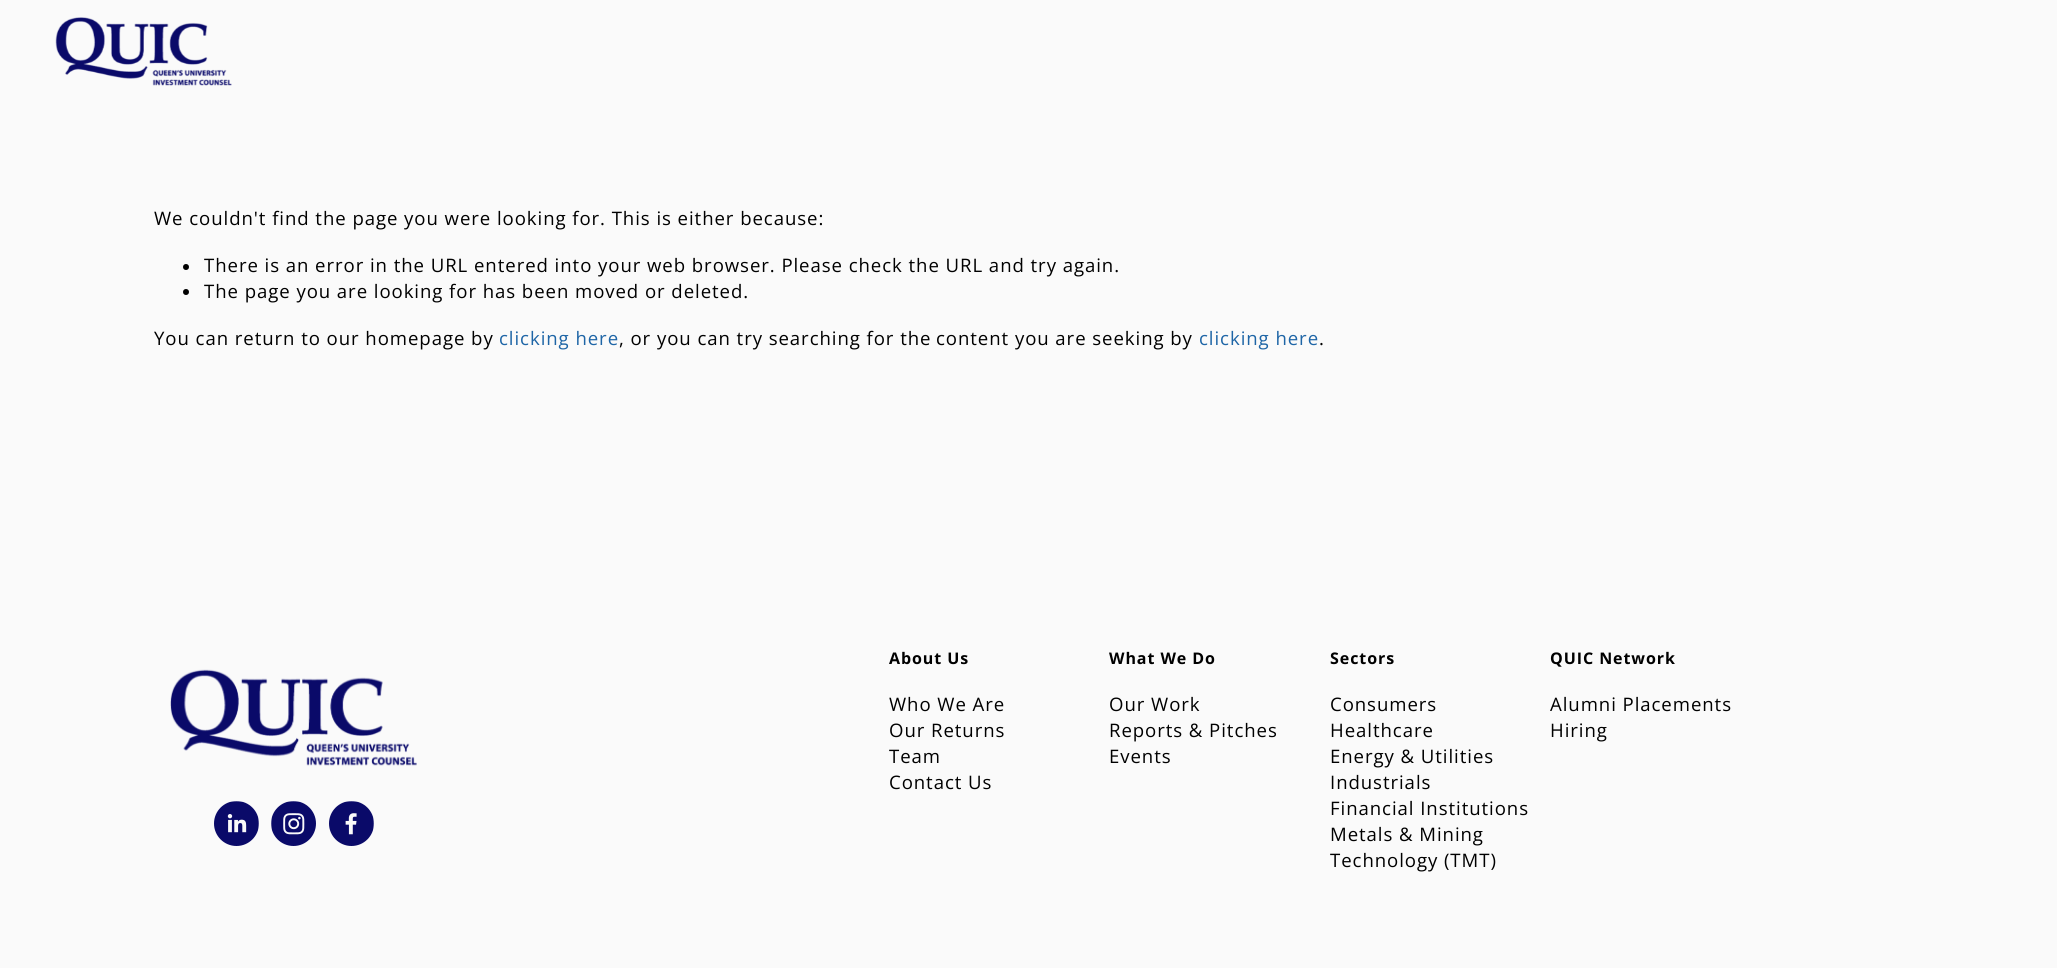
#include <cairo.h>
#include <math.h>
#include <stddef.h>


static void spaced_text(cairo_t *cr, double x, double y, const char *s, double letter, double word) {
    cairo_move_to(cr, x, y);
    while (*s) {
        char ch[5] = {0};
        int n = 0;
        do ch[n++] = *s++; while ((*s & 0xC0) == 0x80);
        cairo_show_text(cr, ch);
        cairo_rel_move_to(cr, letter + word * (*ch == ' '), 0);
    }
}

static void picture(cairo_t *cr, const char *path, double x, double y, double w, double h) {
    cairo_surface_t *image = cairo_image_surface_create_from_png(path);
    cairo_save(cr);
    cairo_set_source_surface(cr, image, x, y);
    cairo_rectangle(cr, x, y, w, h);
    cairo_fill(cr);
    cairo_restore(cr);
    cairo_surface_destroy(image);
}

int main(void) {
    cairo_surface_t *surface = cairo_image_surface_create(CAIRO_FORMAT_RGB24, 2057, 968);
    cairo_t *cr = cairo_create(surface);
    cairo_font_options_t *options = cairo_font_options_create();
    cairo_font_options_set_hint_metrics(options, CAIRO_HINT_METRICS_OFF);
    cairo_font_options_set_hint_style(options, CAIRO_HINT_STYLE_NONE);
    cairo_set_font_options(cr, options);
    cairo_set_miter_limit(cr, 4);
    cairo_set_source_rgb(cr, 0.98, 0.98, 0.98);
    cairo_paint(cr);
    picture(cr, "img1.png", 55, 17, 177, 69);
    cairo_select_font_face(cr, "Open Sans", CAIRO_FONT_SLANT_NORMAL, CAIRO_FONT_WEIGHT_NORMAL);
    cairo_set_font_size(cr, 18.6);
    cairo_set_source_rgb(cr, 0, 0, 0);
    spaced_text(cr, 154, 225, "We couldn't find the page you were looking for. This is either because:", 0.93, 0);
    cairo_new_path(cr);
    cairo_arc(cr, 186, 267, 3, 0, 2 * M_PI);
    cairo_fill(cr);
    spaced_text(cr, 204, 272, "There is an error in the URL entered into your web browser. Please check the URL and try again.", 0.93, 0);
    cairo_new_path(cr);
    cairo_arc(cr, 186, 292, 3, 0, 2 * M_PI);
    cairo_fill(cr);
    spaced_text(cr, 204, 298, "The page you are looking for has been moved or deleted.", 0.93, 0);
    spaced_text(cr, 154, 345, "You can return to our homepage by", 0.93, 0);
    cairo_set_source_rgb(cr, 0.118, 0.396, 0.651);
    spaced_text(cr, 499, 345, "clicking here", 0.93, 0);
    cairo_set_source_rgb(cr, 0, 0, 0);
    spaced_text(cr, 619, 345, ", or you can try searching for the", 0.93, 0);
    spaced_text(cr, 936, 345, "content you are seeking by", 0.93, 0);
    cairo_set_source_rgb(cr, 0.118, 0.396, 0.651);
    spaced_text(cr, 1199, 345, "clicking here", 0.93, 0);
    cairo_set_source_rgb(cr, 0, 0, 0);
    spaced_text(cr, 1319, 345, ".", 0.93, 0);
    picture(cr, "img2.png", 170, 669, 247, 97);
    cairo_select_font_face(cr, "Open Sans", CAIRO_FONT_SLANT_NORMAL, CAIRO_FONT_WEIGHT_BOLD);
    cairo_set_font_size(cr, 16);
    spaced_text(cr, 889, 664, "About Us", 0.93, 0);
    cairo_select_font_face(cr, "Open Sans", CAIRO_FONT_SLANT_NORMAL, CAIRO_FONT_WEIGHT_NORMAL);
    cairo_set_font_size(cr, 18.6);
    spaced_text(cr, 889, 711, "Who We Are", 0.93, 0);
    spaced_text(cr, 889, 737, "Our Returns", 0.93, 0);
    spaced_text(cr, 889, 763, "Team", 0.93, 0);
    spaced_text(cr, 889, 789, "Contact Us", 0.93, 0);
    cairo_select_font_face(cr, "Open Sans", CAIRO_FONT_SLANT_NORMAL, CAIRO_FONT_WEIGHT_BOLD);
    cairo_set_font_size(cr, 16);
    spaced_text(cr, 1109, 664, "What We Do", 0.93, 0);
    cairo_select_font_face(cr, "Open Sans", CAIRO_FONT_SLANT_NORMAL, CAIRO_FONT_WEIGHT_NORMAL);
    cairo_set_font_size(cr, 18.6);
    spaced_text(cr, 1109, 711, "Our Work", 0.93, 0);
    spaced_text(cr, 1109, 737, "Reports & Pitches", 0.93, 0);
    spaced_text(cr, 1109, 763, "Events", 0.93, 0);
    cairo_select_font_face(cr, "Open Sans", CAIRO_FONT_SLANT_NORMAL, CAIRO_FONT_WEIGHT_BOLD);
    cairo_set_font_size(cr, 16);
    spaced_text(cr, 1330, 664, "Sectors", 0.93, 0);
    cairo_select_font_face(cr, "Open Sans", CAIRO_FONT_SLANT_NORMAL, CAIRO_FONT_WEIGHT_NORMAL);
    cairo_set_font_size(cr, 18.6);
    spaced_text(cr, 1330, 711, "Consumers", 0.93, 0);
    spaced_text(cr, 1330, 737, "Healthcare", 0.93, 0);
    spaced_text(cr, 1330, 763, "Energy & Utilities", 0.93, 0);
    spaced_text(cr, 1330, 789, "Industrials", 0.93, 0);
    spaced_text(cr, 1330, 815, "Financial Institutions", 0.93, 0);
    spaced_text(cr, 1330, 841, "Metals & Mining", 0.93, 0);
    spaced_text(cr, 1330, 867, "Technology (TMT)", 0.93, 0);
    cairo_select_font_face(cr, "Open Sans", CAIRO_FONT_SLANT_NORMAL, CAIRO_FONT_WEIGHT_BOLD);
    cairo_set_font_size(cr, 16);
    spaced_text(cr, 1550, 664, "QUIC Network", 0.93, 0);
    cairo_select_font_face(cr, "Open Sans", CAIRO_FONT_SLANT_NORMAL, CAIRO_FONT_WEIGHT_NORMAL);
    cairo_set_font_size(cr, 18.6);
    spaced_text(cr, 1550, 711, "Alumni Placements", 0.93, 0);
    spaced_text(cr, 1550, 737, "Hiring", 0.93, 0);
    picture(cr, "img3.png", 214, 801, 45, 45);
    picture(cr, "img4.png", 271, 801, 45, 45);
    picture(cr, "img5.png", 329, 801, 45, 45);
    cairo_surface_write_to_png(surface, "page.png");
    cairo_font_options_destroy(options);
    cairo_destroy(cr);
    cairo_surface_destroy(surface);
    return 0;
}
